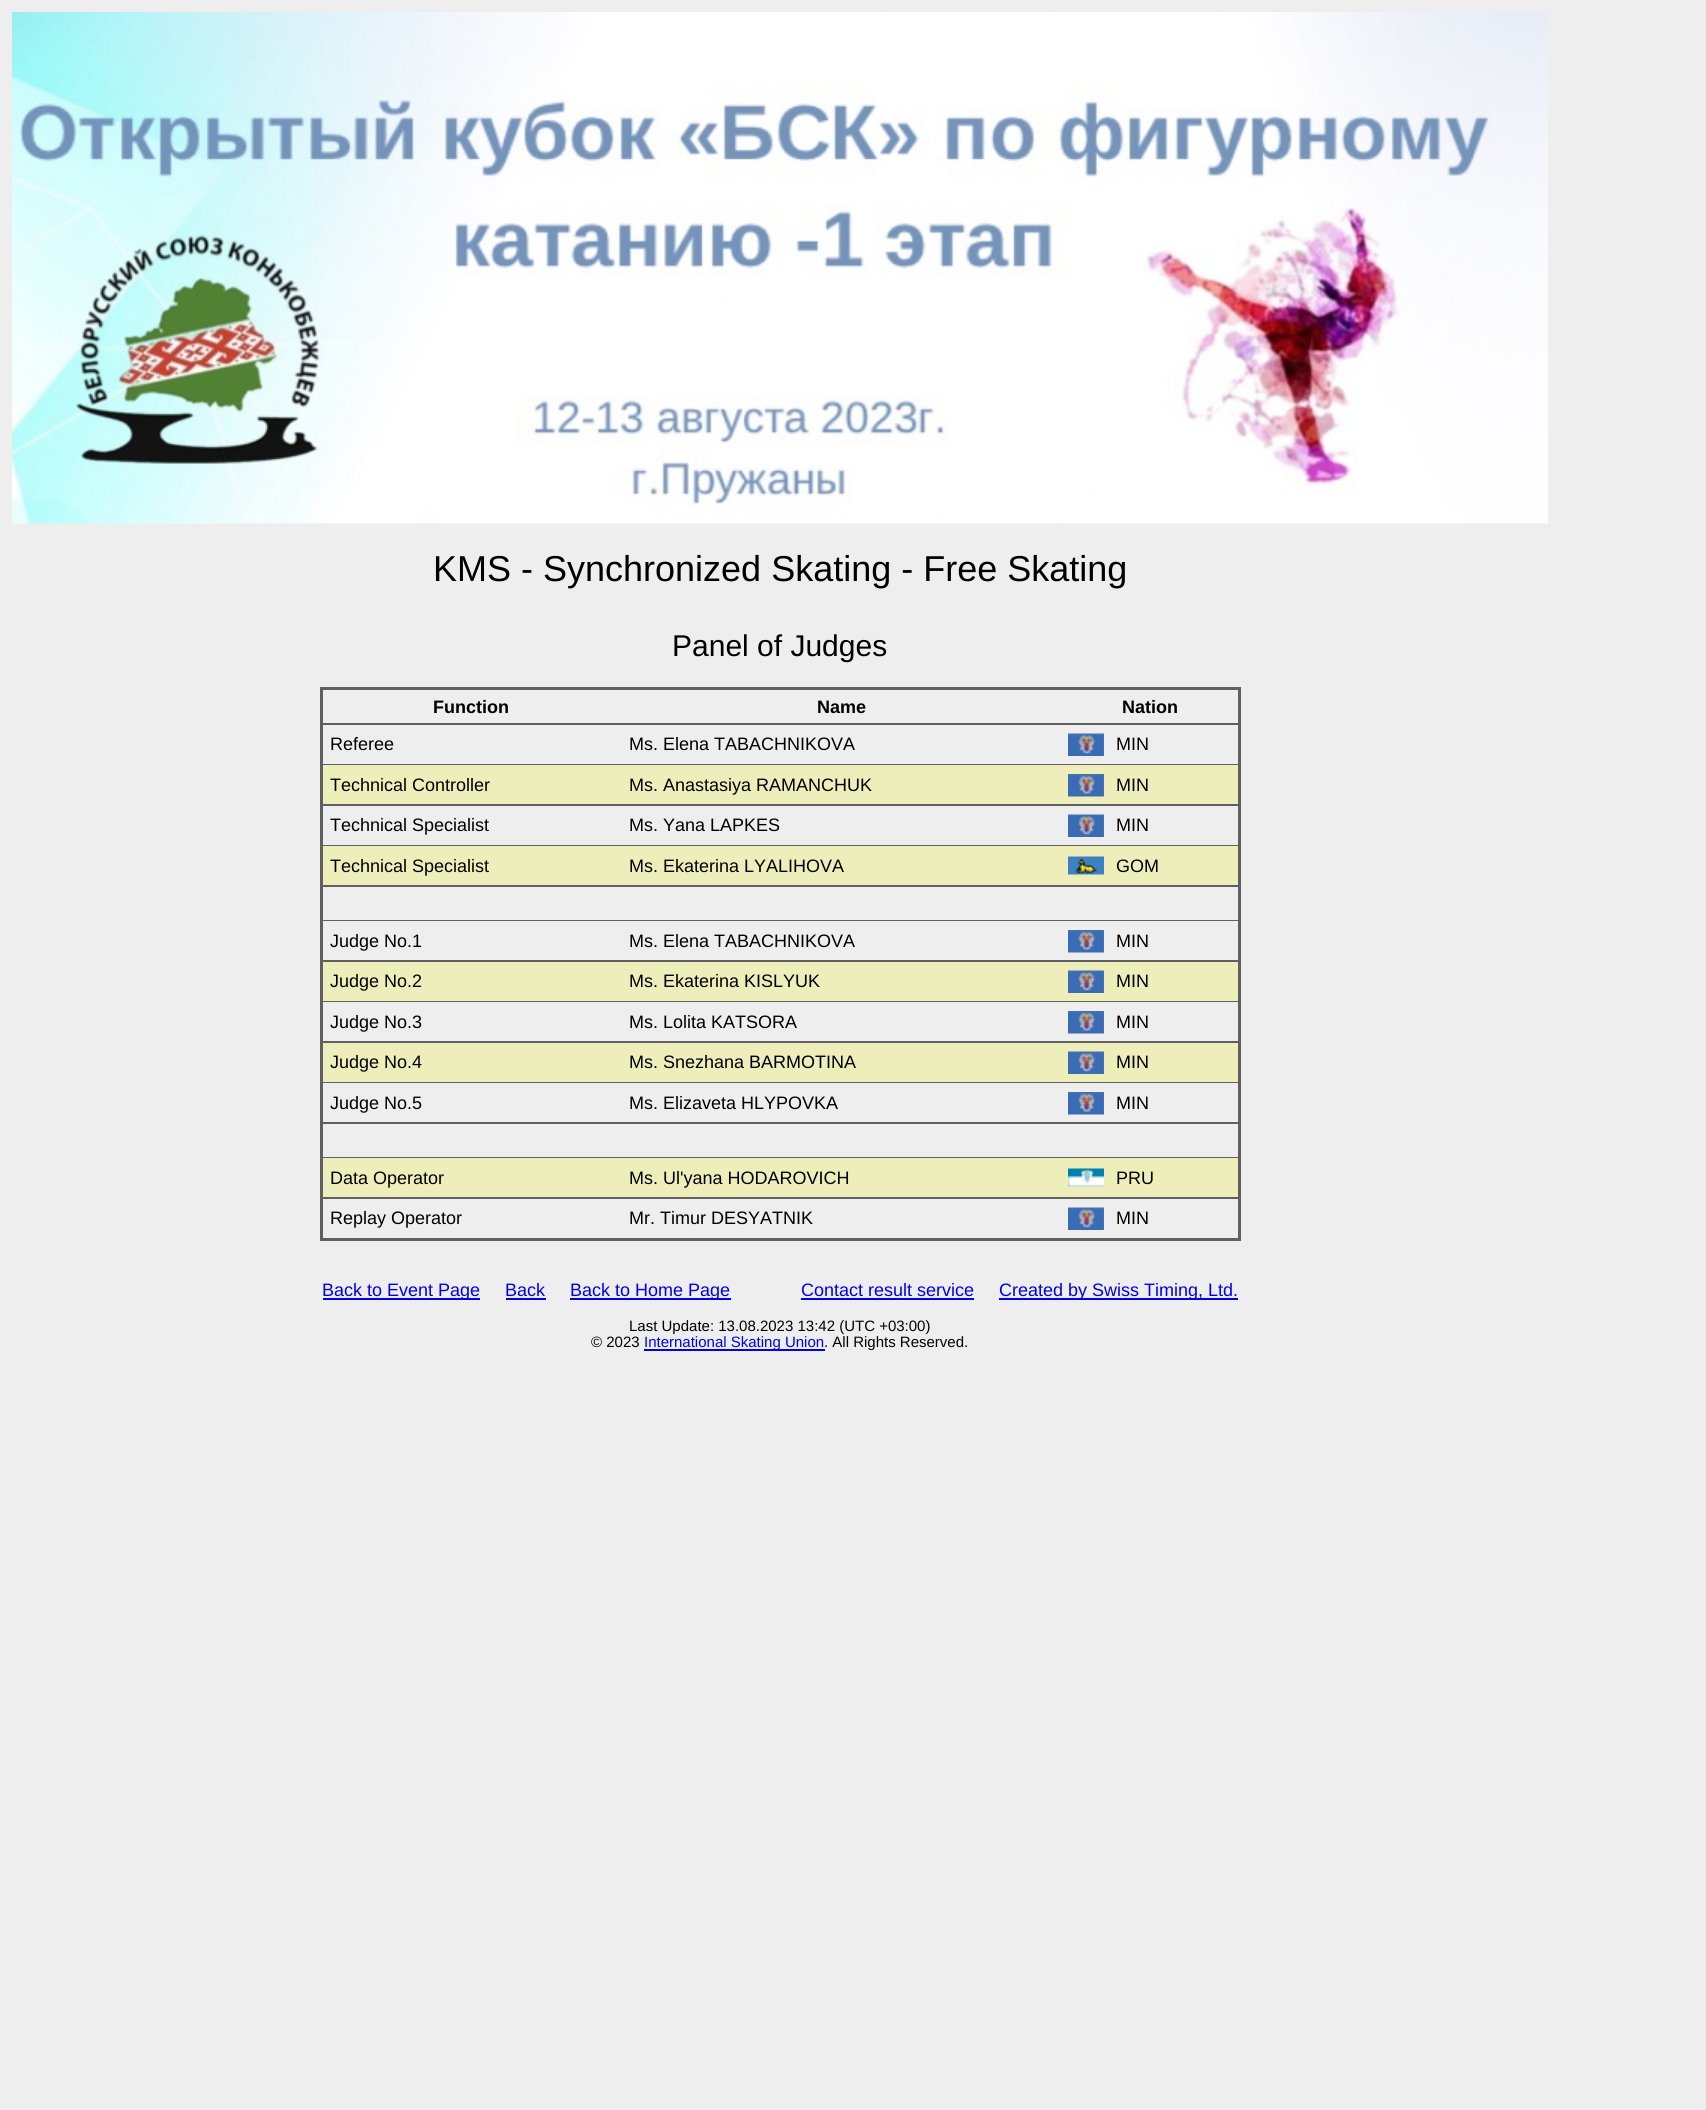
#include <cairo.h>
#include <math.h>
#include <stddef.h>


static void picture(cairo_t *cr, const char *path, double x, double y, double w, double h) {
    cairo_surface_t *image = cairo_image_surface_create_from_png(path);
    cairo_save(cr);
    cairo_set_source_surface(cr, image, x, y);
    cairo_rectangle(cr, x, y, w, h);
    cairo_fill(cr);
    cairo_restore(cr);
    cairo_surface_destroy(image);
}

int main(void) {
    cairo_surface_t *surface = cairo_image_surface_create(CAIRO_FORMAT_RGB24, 1706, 2110);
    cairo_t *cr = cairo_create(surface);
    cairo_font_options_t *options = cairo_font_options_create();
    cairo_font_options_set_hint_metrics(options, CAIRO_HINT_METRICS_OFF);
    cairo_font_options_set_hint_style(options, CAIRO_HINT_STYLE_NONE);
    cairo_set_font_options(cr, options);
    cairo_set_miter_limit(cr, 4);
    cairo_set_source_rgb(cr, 0.933, 0.933, 0.933);
    cairo_paint(cr);
    picture(cr, "img1.png", 12, 12, 1536, 512);
    cairo_select_font_face(cr, "Liberation Sans", CAIRO_FONT_SLANT_NORMAL, CAIRO_FONT_WEIGHT_NORMAL);
    cairo_set_font_size(cr, 36);
    cairo_set_source_rgb(cr, 0, 0, 0);
    cairo_move_to(cr, 433, 581);
    cairo_show_text(cr, "KMS - Synchronized Skating - Free Skating");
    cairo_set_font_size(cr, 30);
    cairo_move_to(cr, 672, 656);
    cairo_show_text(cr, "Panel of Judges");
    cairo_set_source_rgb(cr, 0.376, 0.376, 0.376);
    cairo_rectangle(cr, 320, 687, 921, 554);
    cairo_fill(cr);
    cairo_set_source_rgb(cr, 0.933, 0.933, 0.933);
    cairo_rectangle(cr, 323, 690, 915, 33);
    cairo_fill(cr);
    cairo_select_font_face(cr, "Liberation Sans", CAIRO_FONT_SLANT_NORMAL, CAIRO_FONT_WEIGHT_BOLD);
    cairo_set_font_size(cr, 18);
    cairo_set_source_rgb(cr, 0, 0, 0);
    cairo_move_to(cr, 433, 713);
    cairo_show_text(cr, "Function");
    cairo_move_to(cr, 817, 713);
    cairo_show_text(cr, "Name");
    cairo_move_to(cr, 1122, 713);
    cairo_show_text(cr, "Nation");
    cairo_set_source_rgb(cr, 0.933, 0.933, 0.933);
    cairo_rectangle(cr, 323, 725, 915, 39);
    cairo_fill(cr);
    cairo_select_font_face(cr, "Liberation Sans", CAIRO_FONT_SLANT_NORMAL, CAIRO_FONT_WEIGHT_NORMAL);
    cairo_set_source_rgb(cr, 0, 0, 0);
    cairo_move_to(cr, 330, 750);
    cairo_show_text(cr, "Referee");
    cairo_move_to(cr, 629, 750);
    cairo_show_text(cr, "Ms. Elena TABACHNIKOVA");
    picture(cr, "img2.png", 1068, 733, 36, 23);
    cairo_move_to(cr, 1116, 750);
    cairo_show_text(cr, "MIN");
    cairo_set_source_rgb(cr, 0.933, 0.933, 0.733);
    cairo_rectangle(cr, 323, 765, 915, 39);
    cairo_fill(cr);
    cairo_set_source_rgb(cr, 0, 0, 0);
    cairo_move_to(cr, 330, 791);
    cairo_show_text(cr, "Technical Controller");
    cairo_move_to(cr, 629, 791);
    cairo_show_text(cr, "Ms. Anastasiya RAMANCHUK");
    picture(cr, "img3.png", 1068, 774, 36, 23);
    cairo_move_to(cr, 1116, 791);
    cairo_show_text(cr, "MIN");
    cairo_set_source_rgb(cr, 0.933, 0.933, 0.933);
    cairo_rectangle(cr, 323, 806, 915, 39);
    cairo_fill(cr);
    cairo_set_source_rgb(cr, 0, 0, 0);
    cairo_move_to(cr, 330, 831);
    cairo_show_text(cr, "Technical Specialist");
    cairo_move_to(cr, 629, 831);
    cairo_show_text(cr, "Ms. Yana LAPKES");
    picture(cr, "img2.png", 1068, 814, 36, 23);
    cairo_move_to(cr, 1116, 831);
    cairo_show_text(cr, "MIN");
    cairo_set_source_rgb(cr, 0.933, 0.933, 0.733);
    cairo_rectangle(cr, 323, 846, 915, 39);
    cairo_fill(cr);
    cairo_set_source_rgb(cr, 0, 0, 0);
    cairo_move_to(cr, 330, 872);
    cairo_show_text(cr, "Technical Specialist");
    cairo_move_to(cr, 629, 872);
    cairo_show_text(cr, "Ms. Ekaterina LYALIHOVA");
    picture(cr, "img4.png", 1068, 856, 36, 19);
    cairo_move_to(cr, 1116, 872);
    cairo_show_text(cr, "GOM");
    cairo_set_source_rgb(cr, 0.933, 0.933, 0.933);
    cairo_rectangle(cr, 323, 887, 915, 33);
    cairo_fill(cr);
    cairo_rectangle(cr, 323, 921, 915, 39);
    cairo_fill(cr);
    cairo_set_source_rgb(cr, 0, 0, 0);
    cairo_move_to(cr, 330, 947);
    cairo_show_text(cr, "Judge No.1");
    cairo_move_to(cr, 629, 947);
    cairo_show_text(cr, "Ms. Elena TABACHNIKOVA");
    picture(cr, "img5.png", 1068, 930, 36, 23);
    cairo_move_to(cr, 1116, 947);
    cairo_show_text(cr, "MIN");
    cairo_set_source_rgb(cr, 0.933, 0.933, 0.733);
    cairo_rectangle(cr, 323, 962, 915, 39);
    cairo_fill(cr);
    cairo_set_source_rgb(cr, 0, 0, 0);
    cairo_move_to(cr, 330, 987);
    cairo_show_text(cr, "Judge No.2");
    cairo_move_to(cr, 629, 987);
    cairo_show_text(cr, "Ms. Ekaterina KISLYUK");
    picture(cr, "img6.png", 1068, 970, 36, 23);
    cairo_move_to(cr, 1116, 987);
    cairo_show_text(cr, "MIN");
    cairo_set_source_rgb(cr, 0.933, 0.933, 0.933);
    cairo_rectangle(cr, 323, 1002, 915, 39);
    cairo_fill(cr);
    cairo_set_source_rgb(cr, 0, 0, 0);
    cairo_move_to(cr, 330, 1028);
    cairo_show_text(cr, "Judge No.3");
    cairo_move_to(cr, 629, 1028);
    cairo_show_text(cr, "Ms. Lolita KATSORA");
    picture(cr, "img5.png", 1068, 1011, 36, 23);
    cairo_move_to(cr, 1116, 1028);
    cairo_show_text(cr, "MIN");
    cairo_set_source_rgb(cr, 0.933, 0.933, 0.733);
    cairo_rectangle(cr, 323, 1043, 915, 39);
    cairo_fill(cr);
    cairo_set_source_rgb(cr, 0, 0, 0);
    cairo_move_to(cr, 330, 1068);
    cairo_show_text(cr, "Judge No.4");
    cairo_move_to(cr, 629, 1068);
    cairo_show_text(cr, "Ms. Snezhana BARMOTINA");
    picture(cr, "img6.png", 1068, 1051, 36, 23);
    cairo_move_to(cr, 1116, 1068);
    cairo_show_text(cr, "MIN");
    cairo_set_source_rgb(cr, 0.933, 0.933, 0.933);
    cairo_rectangle(cr, 323, 1083, 915, 39);
    cairo_fill(cr);
    cairo_set_source_rgb(cr, 0, 0, 0);
    cairo_move_to(cr, 330, 1109);
    cairo_show_text(cr, "Judge No.5");
    cairo_move_to(cr, 629, 1109);
    cairo_show_text(cr, "Ms. Elizaveta HLYPOVKA");
    picture(cr, "img5.png", 1068, 1092, 36, 23);
    cairo_move_to(cr, 1116, 1109);
    cairo_show_text(cr, "MIN");
    cairo_set_source_rgb(cr, 0.933, 0.933, 0.933);
    cairo_rectangle(cr, 323, 1124, 915, 33);
    cairo_fill(cr);
    cairo_set_source_rgb(cr, 0.933, 0.933, 0.733);
    cairo_rectangle(cr, 323, 1158, 915, 39);
    cairo_fill(cr);
    cairo_set_source_rgb(cr, 0, 0, 0);
    cairo_move_to(cr, 330, 1184);
    cairo_show_text(cr, "Data Operator");
    cairo_move_to(cr, 629, 1184);
    cairo_show_text(cr, "Ms. Ul'yana HODAROVICH");
    picture(cr, "img7.png", 1068, 1168, 36, 19);
    cairo_move_to(cr, 1116, 1184);
    cairo_show_text(cr, "PRU");
    cairo_set_source_rgb(cr, 0.933, 0.933, 0.933);
    cairo_rectangle(cr, 323, 1199, 915, 39);
    cairo_fill(cr);
    cairo_set_source_rgb(cr, 0, 0, 0);
    cairo_move_to(cr, 330, 1224);
    cairo_show_text(cr, "Replay Operator");
    cairo_move_to(cr, 629, 1224);
    cairo_show_text(cr, "Mr. Timur DESYATNIK");
    picture(cr, "img2.png", 1068, 1207, 36, 23);
    cairo_move_to(cr, 1116, 1224);
    cairo_show_text(cr, "MIN");
    cairo_set_source_rgb(cr, 0, 0, 0.933);
    cairo_rectangle(cr, 323, 1298, 157, 2);
    cairo_fill(cr);
    cairo_move_to(cr, 322, 1296);
    cairo_show_text(cr, "Back to Event Page");
    cairo_move_to(cr, 505, 1296);
    cairo_show_text(cr, "Back");
    cairo_rectangle(cr, 506, 1298, 40, 2);
    cairo_fill(cr);
    cairo_rectangle(cr, 570, 1298, 161, 2);
    cairo_fill(cr);
    cairo_move_to(cr, 570, 1296);
    cairo_show_text(cr, "Back to Home Page");
    cairo_move_to(cr, 801, 1296);
    cairo_show_text(cr, "Contact result service");
    cairo_rectangle(cr, 801, 1298, 173, 2);
    cairo_fill(cr);
    cairo_rectangle(cr, 999, 1298, 239, 2);
    cairo_fill(cr);
    cairo_move_to(cr, 999, 1296);
    cairo_show_text(cr, "Created by Swiss Timing, Ltd.");
    cairo_set_font_size(cr, 15);
    cairo_set_source_rgb(cr, 0, 0, 0);
    cairo_move_to(cr, 629, 1331);
    cairo_show_text(cr, "Last Update: 13.08.2023 13:42 (UTC +03:00)");
    cairo_move_to(cr, 591, 1347);
    cairo_show_text(cr, "© 2023");
    cairo_set_source_rgb(cr, 0, 0, 0.933);
    cairo_rectangle(cr, 644, 1349, 181, 2);
    cairo_fill(cr);
    cairo_move_to(cr, 644, 1347);
    cairo_show_text(cr, "International Skating Union");
    cairo_set_source_rgb(cr, 0, 0, 0);
    cairo_move_to(cr, 824, 1347);
    cairo_show_text(cr, ". All Rights Reserved.");
    cairo_surface_write_to_png(surface, "page.png");
    cairo_font_options_destroy(options);
    cairo_destroy(cr);
    cairo_surface_destroy(surface);
    return 0;
}
